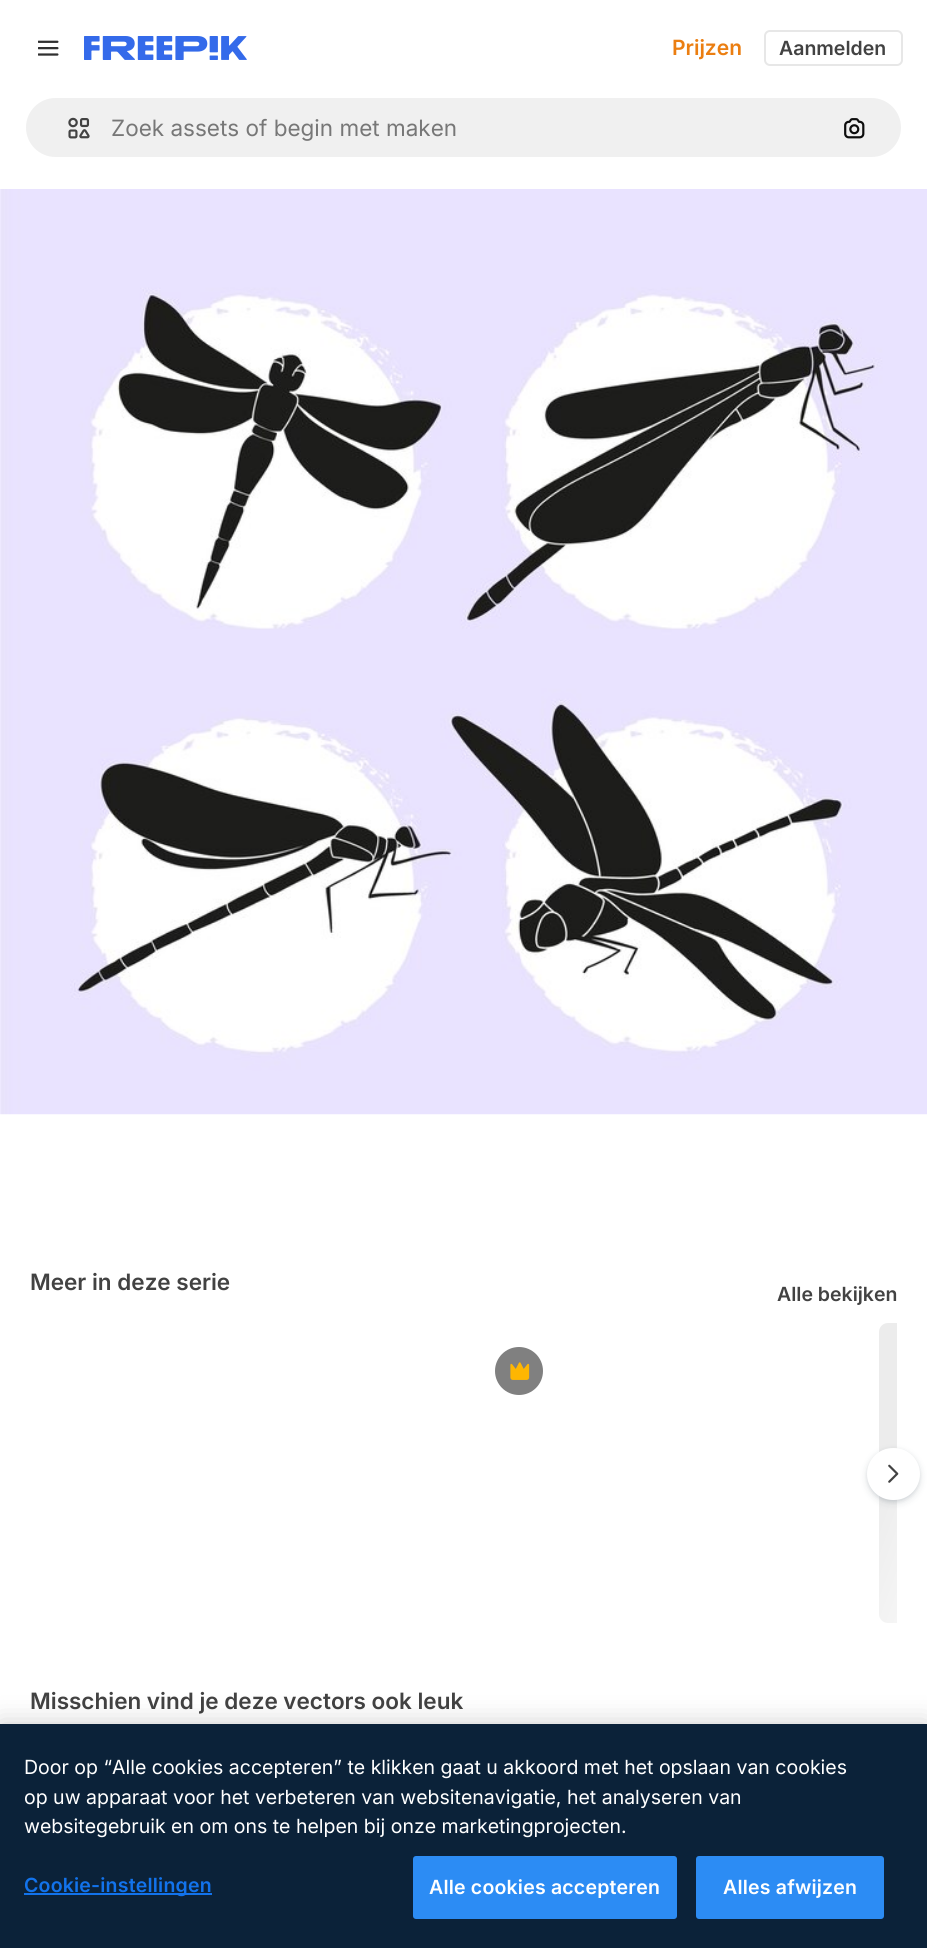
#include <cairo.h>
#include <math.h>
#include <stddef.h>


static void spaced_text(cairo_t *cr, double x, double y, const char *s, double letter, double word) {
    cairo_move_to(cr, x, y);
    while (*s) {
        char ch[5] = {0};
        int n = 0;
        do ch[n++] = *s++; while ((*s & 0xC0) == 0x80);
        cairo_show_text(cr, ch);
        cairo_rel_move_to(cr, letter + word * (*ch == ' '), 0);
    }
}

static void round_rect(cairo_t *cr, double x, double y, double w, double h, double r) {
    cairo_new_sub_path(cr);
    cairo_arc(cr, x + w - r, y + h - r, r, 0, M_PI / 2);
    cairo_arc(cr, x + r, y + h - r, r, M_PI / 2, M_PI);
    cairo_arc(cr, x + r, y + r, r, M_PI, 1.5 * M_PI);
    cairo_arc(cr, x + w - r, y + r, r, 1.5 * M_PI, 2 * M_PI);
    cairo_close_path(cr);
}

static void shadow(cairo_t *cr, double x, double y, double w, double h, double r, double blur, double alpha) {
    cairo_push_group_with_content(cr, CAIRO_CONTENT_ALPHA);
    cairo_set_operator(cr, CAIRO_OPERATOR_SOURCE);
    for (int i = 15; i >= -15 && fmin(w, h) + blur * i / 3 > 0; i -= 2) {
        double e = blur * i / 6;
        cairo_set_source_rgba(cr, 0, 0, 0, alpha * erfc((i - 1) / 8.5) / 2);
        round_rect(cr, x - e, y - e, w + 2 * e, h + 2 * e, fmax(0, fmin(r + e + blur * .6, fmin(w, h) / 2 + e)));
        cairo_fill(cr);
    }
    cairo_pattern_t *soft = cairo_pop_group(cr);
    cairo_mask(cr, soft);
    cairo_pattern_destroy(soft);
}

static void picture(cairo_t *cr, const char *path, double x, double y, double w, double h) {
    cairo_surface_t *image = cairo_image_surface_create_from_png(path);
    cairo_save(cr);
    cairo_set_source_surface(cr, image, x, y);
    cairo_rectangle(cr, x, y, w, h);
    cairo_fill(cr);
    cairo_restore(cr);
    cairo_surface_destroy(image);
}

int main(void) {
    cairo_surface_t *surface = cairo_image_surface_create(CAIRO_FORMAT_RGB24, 927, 1948);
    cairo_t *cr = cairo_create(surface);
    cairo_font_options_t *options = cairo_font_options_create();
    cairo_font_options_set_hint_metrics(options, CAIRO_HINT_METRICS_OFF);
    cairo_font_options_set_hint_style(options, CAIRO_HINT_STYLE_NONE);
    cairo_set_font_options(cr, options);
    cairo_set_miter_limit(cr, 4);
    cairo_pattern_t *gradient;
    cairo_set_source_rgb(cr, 1, 1, 1);
    cairo_paint(cr);
    picture(cr, "img1.png", 38, 40, 21, 16);
    picture(cr, "img2.png", 84, 36, 163, 24);
    cairo_select_font_face(cr, "Inter SemiBold", CAIRO_FONT_SLANT_NORMAL, CAIRO_FONT_WEIGHT_NORMAL);
    cairo_set_font_size(cr, 21);
    cairo_set_source_rgb(cr, 0.918, 0.494, 0.067);
    cairo_move_to(cr, 672, 55);
    cairo_show_text(cr, "Prijzen");
    round_rect(cr, 765, 31, 137, 34, 5);
    cairo_set_source_rgb(cr, 0.906, 0.906, 0.906);
    cairo_stroke(cr);
    cairo_set_font_size(cr, 19.5);
    cairo_set_source_rgb(cr, 0.259, 0.259, 0.259);
    cairo_move_to(cr, 779, 55);
    cairo_show_text(cr, "Aanmelden");
    cairo_set_source_rgb(cr, 0.941, 0.941, 0.941);
    round_rect(cr, 25, 97, 877, 61, 30.5);
    cairo_fill_preserve(cr);
    cairo_set_source_rgb(cr, 1, 1, 1);
    cairo_stroke(cr);
    picture(cr, "img3.png", 68, 117, 22, 22);
    cairo_select_font_face(cr, "Inter", CAIRO_FONT_SLANT_NORMAL, CAIRO_FONT_WEIGHT_NORMAL);
    cairo_set_font_size(cr, 22.5);
    cairo_set_source_rgb(cr, 0.467, 0.467, 0.467);
    cairo_move_to(cr, 111, 136);
    cairo_show_text(cr, "Zoek assets of begin met maken");
    picture(cr, "img4.png", 844, 118, 21, 21);
    picture(cr, "img5.png", 0, 189, 927, 926);
    cairo_select_font_face(cr, "Inter SemiBold", CAIRO_FONT_SLANT_NORMAL, CAIRO_FONT_WEIGHT_NORMAL);
    cairo_set_source_rgb(cr, 0.259, 0.259, 0.259);
    cairo_move_to(cr, 30, 1290);
    cairo_show_text(cr, "Meer in deze serie");
    cairo_set_font_size(cr, 19.5);
    cairo_move_to(cr, 777, 1301);
    cairo_show_text(cr, "Alle bekijken");
    cairo_set_source_rgb(cr, 0.502, 0.502, 0.502);
    cairo_new_path(cr);
    cairo_arc(cr, 519, 1371, 24, 0, 2 * M_PI);
    cairo_fill(cr);
    picture(cr, "img6.png", 510, 1362, 20, 18);
    gradient = cairo_pattern_create_linear(866, 1359, 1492, 1587);
    cairo_pattern_add_color_stop_rgba(gradient, 0.08, 0.925, 0.925, 0.925, 1);
    cairo_pattern_add_color_stop_rgba(gradient, 0.18, 0.961, 0.961, 0.961, 1);
    cairo_pattern_add_color_stop_rgba(gradient, 0.33, 0.925, 0.925, 0.925, 1);
    cairo_set_source(cr, gradient);
    cairo_pattern_destroy(gradient);
    cairo_new_path(cr);
    cairo_move_to(cr, 888, 1323);
    cairo_line_to(cr, 897, 1323);
    cairo_line_to(cr, 897, 1623);
    cairo_line_to(cr, 888, 1623);
    cairo_curve_to(cr, 883, 1623, 879, 1619, 879, 1614);
    cairo_line_to(cr, 879, 1332);
    cairo_curve_to(cr, 879, 1327, 883, 1323, 888, 1323);
    cairo_close_path(cr);
    cairo_fill(cr);
    cairo_set_source_rgb(cr, 0.216, 0.286, 0.341);
    shadow(cr, 867, 1451, 53, 52, 26, 4, 0.15);
    shadow(cr, 867, 1449, 53, 53, 26.5, 1.5, 0.1);
    cairo_set_source_rgb(cr, 1, 1, 1);
    round_rect(cr, 867, 1448, 53, 52, 26);
    cairo_fill(cr);
    picture(cr, "img7.png", 888, 1464, 11, 19);
    cairo_set_font_size(cr, 22.5);
    cairo_set_source_rgb(cr, 0.259, 0.259, 0.259);
    cairo_move_to(cr, 30, 1709);
    cairo_show_text(cr, "Misschien vind je deze vectors ook leuk");
    cairo_set_source_rgb(cr, 0, 0, 0);
    shadow(cr, 0, 1724, 927, 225, 0, 13.5, 0.2);
    cairo_set_source_rgb(cr, 0.043, 0.133, 0.224);
    cairo_rectangle(cr, 0, 1724, 927, 224);
    cairo_fill(cr);
    cairo_select_font_face(cr, "Inter", CAIRO_FONT_SLANT_NORMAL, CAIRO_FONT_WEIGHT_NORMAL);
    cairo_set_font_size(cr, 19.5);
    cairo_set_source_rgb(cr, 1, 1, 1);
    cairo_move_to(cr, 24, 1774);
    cairo_show_text(cr, "Door op “Alle cookies accepteren” te klikken gaat u akkoord met het opslaan van cookies");
    cairo_move_to(cr, 24, 1804);
    cairo_show_text(cr, "op uw apparaat voor het verbeteren van websitenavigatie, het analyseren van");
    cairo_move_to(cr, 24, 1833);
    cairo_show_text(cr, "websitegebruik en om ons te helpen bij onze marketingprojecten.");
    cairo_set_source_rgb(cr, 0.071, 0.451, 0.922);
    cairo_rectangle(cr, 24, 1893, 188, 2);
    cairo_fill(cr);
    cairo_select_font_face(cr, "Inter SemiBold", CAIRO_FONT_SLANT_NORMAL, CAIRO_FONT_WEIGHT_NORMAL);
    spaced_text(cr, 24, 1892, "Cookie-instellingen", 0.2, 0);
    cairo_set_source_rgb(cr, 0.173, 0.549, 0.957);
    round_rect(cr, 414, 1857, 262, 61, 2);
    cairo_fill_preserve(cr);
    cairo_stroke(cr);
    cairo_set_source_rgb(cr, 1, 1, 1);
    spaced_text(cr, 429, 1894, "Alle cookies accepteren", 0.2, 0);
    cairo_set_source_rgb(cr, 0.173, 0.549, 0.957);
    round_rect(cr, 697, 1857, 186, 61, 2);
    cairo_fill_preserve(cr);
    cairo_stroke(cr);
    cairo_set_source_rgb(cr, 1, 1, 1);
    spaced_text(cr, 723, 1894, "Alles afwijzen", 0.2, 0);
    cairo_surface_write_to_png(surface, "page.png");
    cairo_font_options_destroy(options);
    cairo_destroy(cr);
    cairo_surface_destroy(surface);
    return 0;
}
